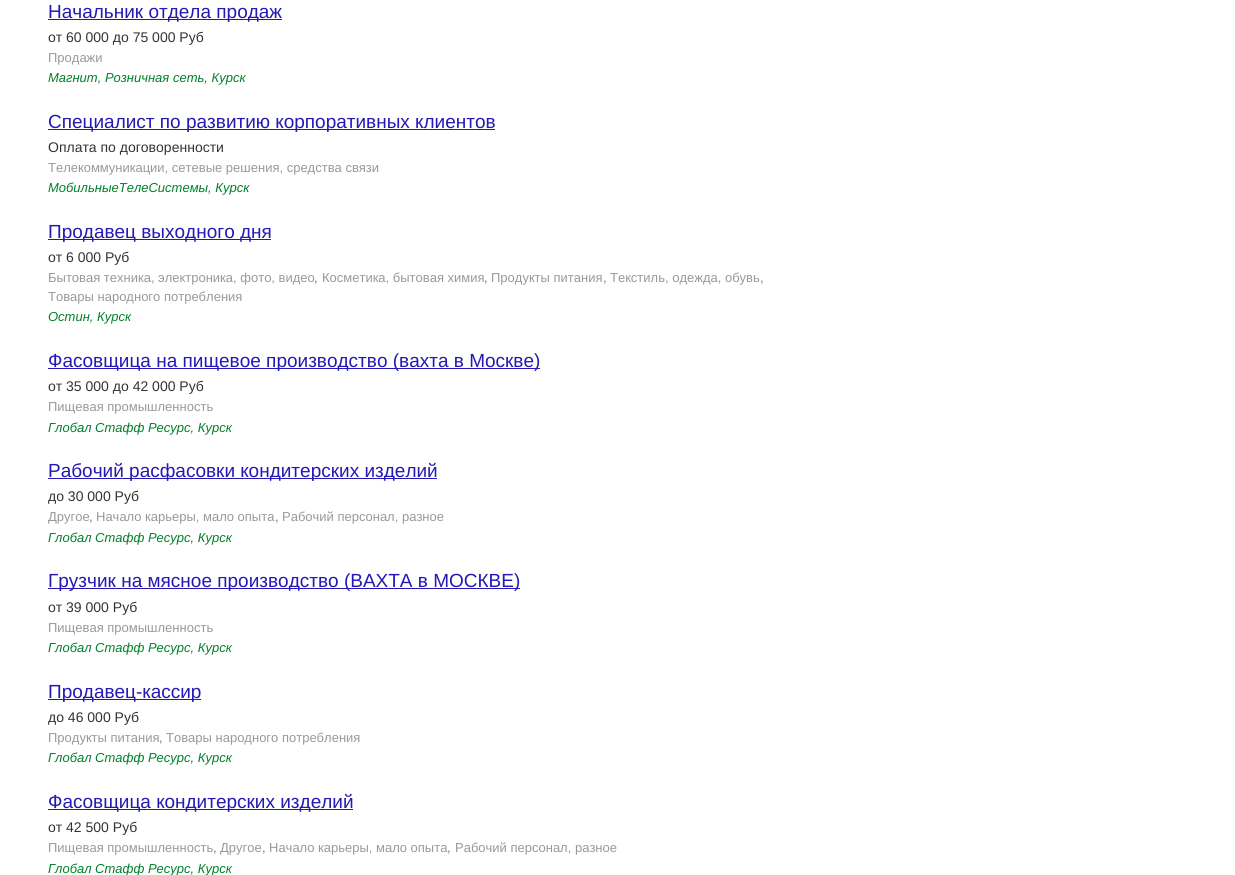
#include <cairo.h>
#include <math.h>
#include <stddef.h>


int main(void) {
    cairo_surface_t *surface = cairo_image_surface_create(CAIRO_FORMAT_RGB24, 1235, 875);
    cairo_t *cr = cairo_create(surface);
    cairo_font_options_t *options = cairo_font_options_create();
    cairo_font_options_set_hint_metrics(options, CAIRO_HINT_METRICS_OFF);
    cairo_font_options_set_hint_style(options, CAIRO_HINT_STYLE_NONE);
    cairo_set_font_options(cr, options);
    cairo_set_miter_limit(cr, 4);
    cairo_set_source_rgb(cr, 1, 1, 1);
    cairo_paint(cr);
    cairo_set_source_rgb(cr, 0.145, 0.094, 0.71);
    cairo_rectangle(cr, 48, 19, 234, 1);
    cairo_fill(cr);
    cairo_select_font_face(cr, "Liberation Sans", CAIRO_FONT_SLANT_NORMAL, CAIRO_FONT_WEIGHT_NORMAL);
    cairo_set_font_size(cr, 19);
    cairo_move_to(cr, 48, 18);
    cairo_show_text(cr, "Начальник отдела продаж");
    cairo_set_font_size(cr, 14);
    cairo_set_source_rgb(cr, 0.2, 0.2, 0.2);
    cairo_move_to(cr, 48, 42);
    cairo_show_text(cr, "от 60 000 до 75 000 Руб");
    cairo_set_font_size(cr, 13);
    cairo_set_source_rgb(cr, 0.6, 0.6, 0.6);
    cairo_move_to(cr, 48, 62);
    cairo_show_text(cr, "Продажи");
    cairo_select_font_face(cr, "Liberation Sans", CAIRO_FONT_SLANT_ITALIC, CAIRO_FONT_WEIGHT_NORMAL);
    cairo_set_source_rgb(cr, 0, 0.502, 0.165);
    cairo_move_to(cr, 48, 82);
    cairo_show_text(cr, "Магнит, Розничная сеть, Курск");
    cairo_set_source_rgb(cr, 0.145, 0.094, 0.71);
    cairo_rectangle(cr, 48, 129, 447, 1);
    cairo_fill(cr);
    cairo_select_font_face(cr, "Liberation Sans", CAIRO_FONT_SLANT_NORMAL, CAIRO_FONT_WEIGHT_NORMAL);
    cairo_set_font_size(cr, 19);
    cairo_move_to(cr, 48, 128);
    cairo_show_text(cr, "Специалист по развитию корпоративных клиентов");
    cairo_set_font_size(cr, 14);
    cairo_set_source_rgb(cr, 0.2, 0.2, 0.2);
    cairo_move_to(cr, 48, 152);
    cairo_show_text(cr, "Оплата по договоренности");
    cairo_set_font_size(cr, 13);
    cairo_set_source_rgb(cr, 0.6, 0.6, 0.6);
    cairo_move_to(cr, 48, 172);
    cairo_show_text(cr, "Телекоммуникации, сетевые решения, средства связи");
    cairo_select_font_face(cr, "Liberation Sans", CAIRO_FONT_SLANT_ITALIC, CAIRO_FONT_WEIGHT_NORMAL);
    cairo_set_source_rgb(cr, 0, 0.502, 0.165);
    cairo_move_to(cr, 48, 192);
    cairo_show_text(cr, "МобильныеТелеСистемы, Курск");
    cairo_set_source_rgb(cr, 0.145, 0.094, 0.71);
    cairo_rectangle(cr, 48, 239, 223, 1);
    cairo_fill(cr);
    cairo_select_font_face(cr, "Liberation Sans", CAIRO_FONT_SLANT_NORMAL, CAIRO_FONT_WEIGHT_NORMAL);
    cairo_set_font_size(cr, 19);
    cairo_move_to(cr, 48, 238);
    cairo_show_text(cr, "Продавец выходного дня");
    cairo_set_font_size(cr, 14);
    cairo_set_source_rgb(cr, 0.2, 0.2, 0.2);
    cairo_move_to(cr, 48, 262);
    cairo_show_text(cr, "от 6 000 Руб");
    cairo_set_font_size(cr, 13);
    cairo_set_source_rgb(cr, 0.6, 0.6, 0.6);
    cairo_move_to(cr, 48, 282);
    cairo_show_text(cr, "Бытовая техника, электроника, фото, видео");
    cairo_set_source_rgb(cr, 0.467, 0.467, 0.467);
    cairo_move_to(cr, 314, 282);
    cairo_show_text(cr, ",");
    cairo_set_source_rgb(cr, 0.6, 0.6, 0.6);
    cairo_move_to(cr, 322, 282);
    cairo_show_text(cr, "Косметика, бытовая химия");
    cairo_set_source_rgb(cr, 0.467, 0.467, 0.467);
    cairo_move_to(cr, 484, 282);
    cairo_show_text(cr, ",");
    cairo_set_source_rgb(cr, 0.6, 0.6, 0.6);
    cairo_move_to(cr, 491, 282);
    cairo_show_text(cr, "Продукты питания");
    cairo_set_source_rgb(cr, 0.467, 0.467, 0.467);
    cairo_move_to(cr, 603, 282);
    cairo_show_text(cr, ",");
    cairo_set_source_rgb(cr, 0.6, 0.6, 0.6);
    cairo_move_to(cr, 610, 282);
    cairo_show_text(cr, "Текстиль, одежда, обувь");
    cairo_set_source_rgb(cr, 0.467, 0.467, 0.467);
    cairo_move_to(cr, 760, 282);
    cairo_show_text(cr, ",");
    cairo_set_source_rgb(cr, 0.6, 0.6, 0.6);
    cairo_move_to(cr, 48, 301);
    cairo_show_text(cr, "Товары народного потребления");
    cairo_select_font_face(cr, "Liberation Sans", CAIRO_FONT_SLANT_ITALIC, CAIRO_FONT_WEIGHT_NORMAL);
    cairo_set_source_rgb(cr, 0, 0.502, 0.165);
    cairo_move_to(cr, 48, 321);
    cairo_show_text(cr, "Остин, Курск");
    cairo_set_source_rgb(cr, 0.145, 0.094, 0.71);
    cairo_rectangle(cr, 48, 368, 492, 1);
    cairo_fill(cr);
    cairo_select_font_face(cr, "Liberation Sans", CAIRO_FONT_SLANT_NORMAL, CAIRO_FONT_WEIGHT_NORMAL);
    cairo_set_font_size(cr, 19);
    cairo_move_to(cr, 48, 367);
    cairo_show_text(cr, "Фасовщица на пищевое производство (вахта в Москве)");
    cairo_set_font_size(cr, 14);
    cairo_set_source_rgb(cr, 0.2, 0.2, 0.2);
    cairo_move_to(cr, 48, 391);
    cairo_show_text(cr, "от 35 000 до 42 000 Руб");
    cairo_set_font_size(cr, 13);
    cairo_set_source_rgb(cr, 0.6, 0.6, 0.6);
    cairo_move_to(cr, 48, 411);
    cairo_show_text(cr, "Пищевая промышленность");
    cairo_select_font_face(cr, "Liberation Sans", CAIRO_FONT_SLANT_ITALIC, CAIRO_FONT_WEIGHT_NORMAL);
    cairo_set_source_rgb(cr, 0, 0.502, 0.165);
    cairo_move_to(cr, 48, 432);
    cairo_show_text(cr, "Глобал Стафф Ресурс, Курск");
    cairo_set_source_rgb(cr, 0.145, 0.094, 0.71);
    cairo_rectangle(cr, 48, 478, 389, 1);
    cairo_fill(cr);
    cairo_select_font_face(cr, "Liberation Sans", CAIRO_FONT_SLANT_NORMAL, CAIRO_FONT_WEIGHT_NORMAL);
    cairo_set_font_size(cr, 19);
    cairo_move_to(cr, 48, 477);
    cairo_show_text(cr, "Рабочий расфасовки кондитерских изделий");
    cairo_set_font_size(cr, 14);
    cairo_set_source_rgb(cr, 0.2, 0.2, 0.2);
    cairo_move_to(cr, 48, 501);
    cairo_show_text(cr, "до 30 000 Руб");
    cairo_set_font_size(cr, 13);
    cairo_set_source_rgb(cr, 0.6, 0.6, 0.6);
    cairo_move_to(cr, 48, 521);
    cairo_show_text(cr, "Другое");
    cairo_set_source_rgb(cr, 0.467, 0.467, 0.467);
    cairo_move_to(cr, 89, 521);
    cairo_show_text(cr, ",");
    cairo_set_source_rgb(cr, 0.6, 0.6, 0.6);
    cairo_move_to(cr, 96, 521);
    cairo_show_text(cr, "Начало карьеры, мало опыта");
    cairo_set_source_rgb(cr, 0.467, 0.467, 0.467);
    cairo_move_to(cr, 275, 521);
    cairo_show_text(cr, ",");
    cairo_set_source_rgb(cr, 0.6, 0.6, 0.6);
    cairo_move_to(cr, 282, 521);
    cairo_show_text(cr, "Рабочий персонал, разное");
    cairo_select_font_face(cr, "Liberation Sans", CAIRO_FONT_SLANT_ITALIC, CAIRO_FONT_WEIGHT_NORMAL);
    cairo_set_source_rgb(cr, 0, 0.502, 0.165);
    cairo_move_to(cr, 48, 542);
    cairo_show_text(cr, "Глобал Стафф Ресурс, Курск");
    cairo_set_source_rgb(cr, 0.145, 0.094, 0.71);
    cairo_rectangle(cr, 48, 588, 472, 1);
    cairo_fill(cr);
    cairo_select_font_face(cr, "Liberation Sans", CAIRO_FONT_SLANT_NORMAL, CAIRO_FONT_WEIGHT_NORMAL);
    cairo_set_font_size(cr, 19);
    cairo_move_to(cr, 48, 587);
    cairo_show_text(cr, "Грузчик на мясное производство (ВАХТА в МОСКВЕ)");
    cairo_set_font_size(cr, 14);
    cairo_set_source_rgb(cr, 0.2, 0.2, 0.2);
    cairo_move_to(cr, 48, 612);
    cairo_show_text(cr, "от 39 000 Руб");
    cairo_set_font_size(cr, 13);
    cairo_set_source_rgb(cr, 0.6, 0.6, 0.6);
    cairo_move_to(cr, 48, 632);
    cairo_show_text(cr, "Пищевая промышленность");
    cairo_select_font_face(cr, "Liberation Sans", CAIRO_FONT_SLANT_ITALIC, CAIRO_FONT_WEIGHT_NORMAL);
    cairo_set_source_rgb(cr, 0, 0.502, 0.165);
    cairo_move_to(cr, 48, 652);
    cairo_show_text(cr, "Глобал Стафф Ресурс, Курск");
    cairo_set_source_rgb(cr, 0.145, 0.094, 0.71);
    cairo_rectangle(cr, 48, 699, 153, 1);
    cairo_fill(cr);
    cairo_select_font_face(cr, "Liberation Sans", CAIRO_FONT_SLANT_NORMAL, CAIRO_FONT_WEIGHT_NORMAL);
    cairo_set_font_size(cr, 19);
    cairo_move_to(cr, 48, 698);
    cairo_show_text(cr, "Продавец-кассир");
    cairo_set_font_size(cr, 14);
    cairo_set_source_rgb(cr, 0.2, 0.2, 0.2);
    cairo_move_to(cr, 48, 722);
    cairo_show_text(cr, "до 46 000 Руб");
    cairo_set_font_size(cr, 13);
    cairo_set_source_rgb(cr, 0.6, 0.6, 0.6);
    cairo_move_to(cr, 48, 742);
    cairo_show_text(cr, "Продукты питания");
    cairo_set_source_rgb(cr, 0.467, 0.467, 0.467);
    cairo_move_to(cr, 159, 742);
    cairo_show_text(cr, ",");
    cairo_set_source_rgb(cr, 0.6, 0.6, 0.6);
    cairo_move_to(cr, 166, 742);
    cairo_show_text(cr, "Товары народного потребления");
    cairo_select_font_face(cr, "Liberation Sans", CAIRO_FONT_SLANT_ITALIC, CAIRO_FONT_WEIGHT_NORMAL);
    cairo_set_source_rgb(cr, 0, 0.502, 0.165);
    cairo_move_to(cr, 48, 762);
    cairo_show_text(cr, "Глобал Стафф Ресурс, Курск");
    cairo_set_source_rgb(cr, 0.145, 0.094, 0.71);
    cairo_rectangle(cr, 48, 809, 305, 1);
    cairo_fill(cr);
    cairo_select_font_face(cr, "Liberation Sans", CAIRO_FONT_SLANT_NORMAL, CAIRO_FONT_WEIGHT_NORMAL);
    cairo_set_font_size(cr, 19);
    cairo_move_to(cr, 48, 808);
    cairo_show_text(cr, "Фасовщица кондитерских изделий");
    cairo_set_font_size(cr, 14);
    cairo_set_source_rgb(cr, 0.2, 0.2, 0.2);
    cairo_move_to(cr, 48, 832);
    cairo_show_text(cr, "от 42 500 Руб");
    cairo_set_font_size(cr, 13);
    cairo_set_source_rgb(cr, 0.6, 0.6, 0.6);
    cairo_move_to(cr, 48, 852);
    cairo_show_text(cr, "Пищевая промышленность");
    cairo_set_source_rgb(cr, 0.467, 0.467, 0.467);
    cairo_move_to(cr, 213, 852);
    cairo_show_text(cr, ",");
    cairo_set_source_rgb(cr, 0.6, 0.6, 0.6);
    cairo_move_to(cr, 220, 852);
    cairo_show_text(cr, "Другое");
    cairo_set_source_rgb(cr, 0.467, 0.467, 0.467);
    cairo_move_to(cr, 262, 852);
    cairo_show_text(cr, ",");
    cairo_set_source_rgb(cr, 0.6, 0.6, 0.6);
    cairo_move_to(cr, 269, 852);
    cairo_show_text(cr, "Начало карьеры, мало опыта");
    cairo_set_source_rgb(cr, 0.467, 0.467, 0.467);
    cairo_move_to(cr, 447, 852);
    cairo_show_text(cr, ",");
    cairo_set_source_rgb(cr, 0.6, 0.6, 0.6);
    cairo_move_to(cr, 455, 852);
    cairo_show_text(cr, "Рабочий персонал, разное");
    cairo_select_font_face(cr, "Liberation Sans", CAIRO_FONT_SLANT_ITALIC, CAIRO_FONT_WEIGHT_NORMAL);
    cairo_set_source_rgb(cr, 0, 0.502, 0.165);
    cairo_move_to(cr, 48, 873);
    cairo_show_text(cr, "Глобал Стафф Ресурс, Курск");
    cairo_surface_write_to_png(surface, "page.png");
    cairo_font_options_destroy(options);
    cairo_destroy(cr);
    cairo_surface_destroy(surface);
    return 0;
}
